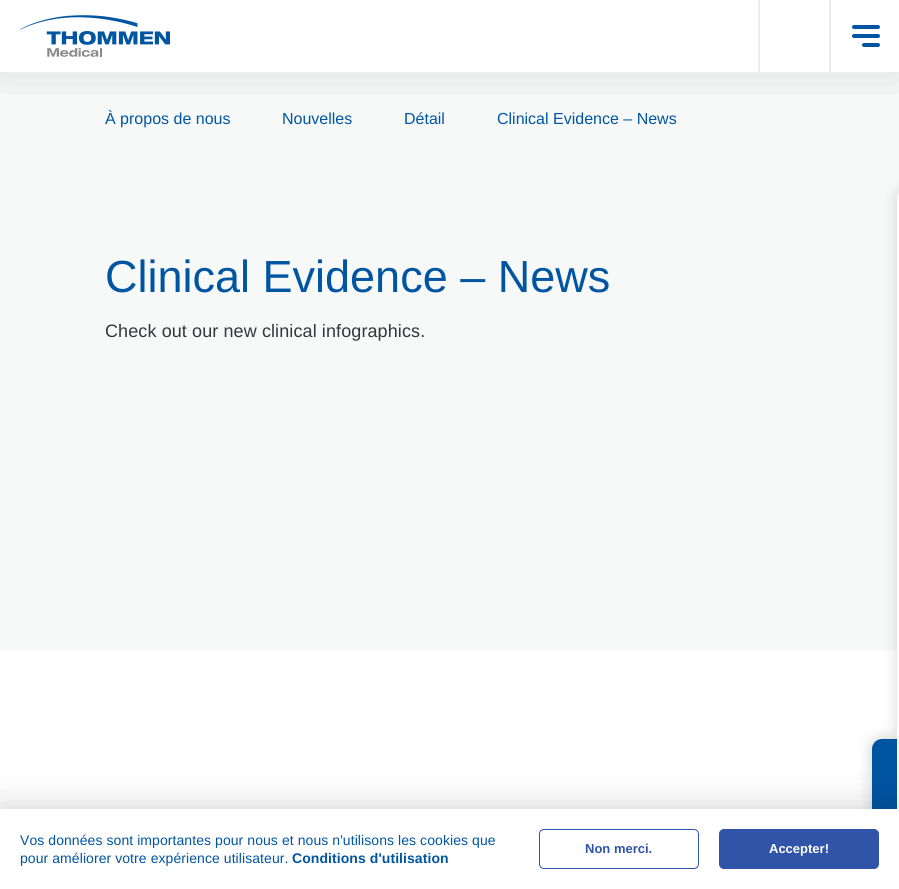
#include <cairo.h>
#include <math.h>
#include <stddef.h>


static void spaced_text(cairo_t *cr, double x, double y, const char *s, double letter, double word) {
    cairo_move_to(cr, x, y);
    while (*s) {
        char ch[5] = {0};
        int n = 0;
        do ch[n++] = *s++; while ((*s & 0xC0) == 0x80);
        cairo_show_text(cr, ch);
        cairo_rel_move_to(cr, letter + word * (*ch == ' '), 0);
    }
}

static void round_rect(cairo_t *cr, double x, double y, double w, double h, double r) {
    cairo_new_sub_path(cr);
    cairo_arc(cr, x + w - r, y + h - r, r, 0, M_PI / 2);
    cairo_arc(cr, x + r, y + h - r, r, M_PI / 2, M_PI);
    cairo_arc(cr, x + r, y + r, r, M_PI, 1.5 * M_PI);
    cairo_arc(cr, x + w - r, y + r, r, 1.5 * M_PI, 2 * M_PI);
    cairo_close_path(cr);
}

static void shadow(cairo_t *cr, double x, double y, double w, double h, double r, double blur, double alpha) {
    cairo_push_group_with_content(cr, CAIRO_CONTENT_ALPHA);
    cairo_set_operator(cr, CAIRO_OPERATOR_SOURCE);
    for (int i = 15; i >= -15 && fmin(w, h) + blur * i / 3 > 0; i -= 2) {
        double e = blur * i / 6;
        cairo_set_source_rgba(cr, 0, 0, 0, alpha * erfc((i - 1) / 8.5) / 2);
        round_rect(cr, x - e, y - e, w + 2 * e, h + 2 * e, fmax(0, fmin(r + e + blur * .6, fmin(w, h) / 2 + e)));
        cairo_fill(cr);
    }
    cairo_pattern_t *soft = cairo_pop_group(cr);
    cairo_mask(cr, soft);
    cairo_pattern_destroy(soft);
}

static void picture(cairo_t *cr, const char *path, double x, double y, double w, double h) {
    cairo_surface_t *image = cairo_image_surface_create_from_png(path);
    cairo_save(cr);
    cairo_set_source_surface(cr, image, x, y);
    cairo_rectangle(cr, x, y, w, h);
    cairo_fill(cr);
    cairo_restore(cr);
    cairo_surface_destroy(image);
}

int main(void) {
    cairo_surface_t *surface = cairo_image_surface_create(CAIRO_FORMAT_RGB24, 899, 889);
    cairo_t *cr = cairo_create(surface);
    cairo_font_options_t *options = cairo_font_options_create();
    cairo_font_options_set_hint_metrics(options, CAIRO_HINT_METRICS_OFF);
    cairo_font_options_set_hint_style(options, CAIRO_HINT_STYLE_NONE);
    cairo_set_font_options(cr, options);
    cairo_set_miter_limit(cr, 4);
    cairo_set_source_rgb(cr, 1, 1, 1);
    cairo_paint(cr);
    cairo_set_source_rgb(cr, 0.965, 0.973, 0.976);
    cairo_rectangle(cr, 0, 72, 899, 578);
    cairo_fill(cr);
    cairo_save(cr);
    cairo_rectangle(cr, 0, 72, 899, 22);
    cairo_clip(cr);
    cairo_set_source_rgb(cr, 0, 0, 0);
    shadow(cr, 0, 3, 899, 72, 0, 23, 0.1);
    cairo_restore(cr);
    picture(cr, "img1.png", 20, 15, 150, 42);
    cairo_set_source_rgb(cr, 0.906, 0.922, 0.933);
    cairo_rectangle(cr, 758, 0, 2, 72);
    cairo_fill(cr);
    cairo_rectangle(cr, 829, 0, 2, 72);
    cairo_fill(cr);
    cairo_set_source_rgb(cr, 0, 0.333, 0.635);
    round_rect(cr, 852, 25, 28, 4, 2);
    cairo_fill(cr);
    round_rect(cr, 852, 34, 28, 4, 2);
    cairo_fill(cr);
    round_rect(cr, 862, 43, 18, 4, 2);
    cairo_fill(cr);
    cairo_set_source_rgb(cr, 0, 0, 0);
    shadow(cr, 872, 739, 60, 80, 10, 7.5, 0.2);
    cairo_set_source_rgb(cr, 0, 0.333, 0.635);
    cairo_new_path(cr);
    cairo_move_to(cr, 882, 739);
    cairo_line_to(cr, 897, 739);
    cairo_line_to(cr, 897, 819);
    cairo_line_to(cr, 882, 819);
    cairo_curve_to(cr, 876.5, 819, 872, 814.5, 872, 809);
    cairo_line_to(cr, 872, 749);
    cairo_curve_to(cr, 872, 743.5, 876.5, 739, 882, 739);
    cairo_close_path(cr);
    cairo_fill(cr);
    cairo_set_source_rgb(cr, 1, 1, 1);
    cairo_rectangle(cr, 897, 739, 2, 70);
    cairo_fill(cr);
    cairo_set_source_rgb(cr, 0, 0, 0);
    shadow(cr, 897, 189, 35, 550, 10, 7.5, 0.15);
    cairo_set_source_rgb(cr, 1, 1, 1);
    cairo_new_path(cr);
    cairo_move_to(cr, 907, 189);
    cairo_line_to(cr, 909, 189);
    cairo_line_to(cr, 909, 739);
    cairo_line_to(cr, 897, 739);
    cairo_line_to(cr, 897, 199);
    cairo_curve_to(cr, 897, 193.5, 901.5, 189, 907, 189);
    cairo_close_path(cr);
    cairo_fill(cr);
    cairo_select_font_face(cr, "Liberation Sans", CAIRO_FONT_SLANT_NORMAL, CAIRO_FONT_WEIGHT_NORMAL);
    cairo_set_font_size(cr, 16);
    cairo_set_source_rgb(cr, 0, 0.333, 0.635);
    cairo_move_to(cr, 105, 124);
    cairo_show_text(cr, "À propos de nous");
    cairo_move_to(cr, 282, 124);
    cairo_show_text(cr, "Nouvelles");
    cairo_move_to(cr, 404, 124);
    cairo_show_text(cr, "Détail");
    cairo_move_to(cr, 497, 124);
    cairo_show_text(cr, "Clinical Evidence – News");
    cairo_set_font_size(cr, 45);
    cairo_move_to(cr, 105, 292);
    cairo_show_text(cr, "Clinical Evidence – News");
    cairo_set_font_size(cr, 18);
    cairo_set_source_rgb(cr, 0.204, 0.212, 0.22);
    spaced_text(cr, 105, 337, "Check out our new clinical infographics.", 0.1, 0);
    cairo_set_source_rgb(cr, 0, 0, 0);
    shadow(cr, 0, 809, 899, 80, 0, 17.5, 0.2);
    cairo_set_source_rgb(cr, 1, 1, 1);
    cairo_rectangle(cr, 0, 809, 899, 80);
    cairo_fill(cr);
    cairo_set_font_size(cr, 14);
    cairo_set_source_rgb(cr, 0, 0.333, 0.635);
    spaced_text(cr, 20, 845, "Vos données sont importantes pour nous et nous n'utilisons les cookies que", 0.07, 0);
    spaced_text(cr, 20, 863, "pour améliorer votre expérience utilisateur.", 0.07, 0);
    cairo_select_font_face(cr, "Liberation Sans", CAIRO_FONT_SLANT_NORMAL, CAIRO_FONT_WEIGHT_BOLD);
    spaced_text(cr, 292, 863, "Conditions d'utilisation", 0.07, 0);
    round_rect(cr, 539.5, 829.5, 159, 39, 4.5);
    cairo_set_source_rgb(cr, 0.184, 0.329, 0.659);
    cairo_set_line_width(cr, 1);
    cairo_stroke(cr);
    cairo_set_font_size(cr, 13);
    cairo_move_to(cr, 585, 853);
    cairo_show_text(cr, "Non merci.");
    round_rect(cr, 719.5, 829.5, 159, 39, 4.5);
    cairo_fill_preserve(cr);
    cairo_stroke(cr);
    cairo_set_source_rgb(cr, 1, 1, 1);
    cairo_move_to(cr, 769, 853);
    cairo_show_text(cr, "Accepter!");
    cairo_surface_write_to_png(surface, "page.png");
    cairo_font_options_destroy(options);
    cairo_destroy(cr);
    cairo_surface_destroy(surface);
    return 0;
}
